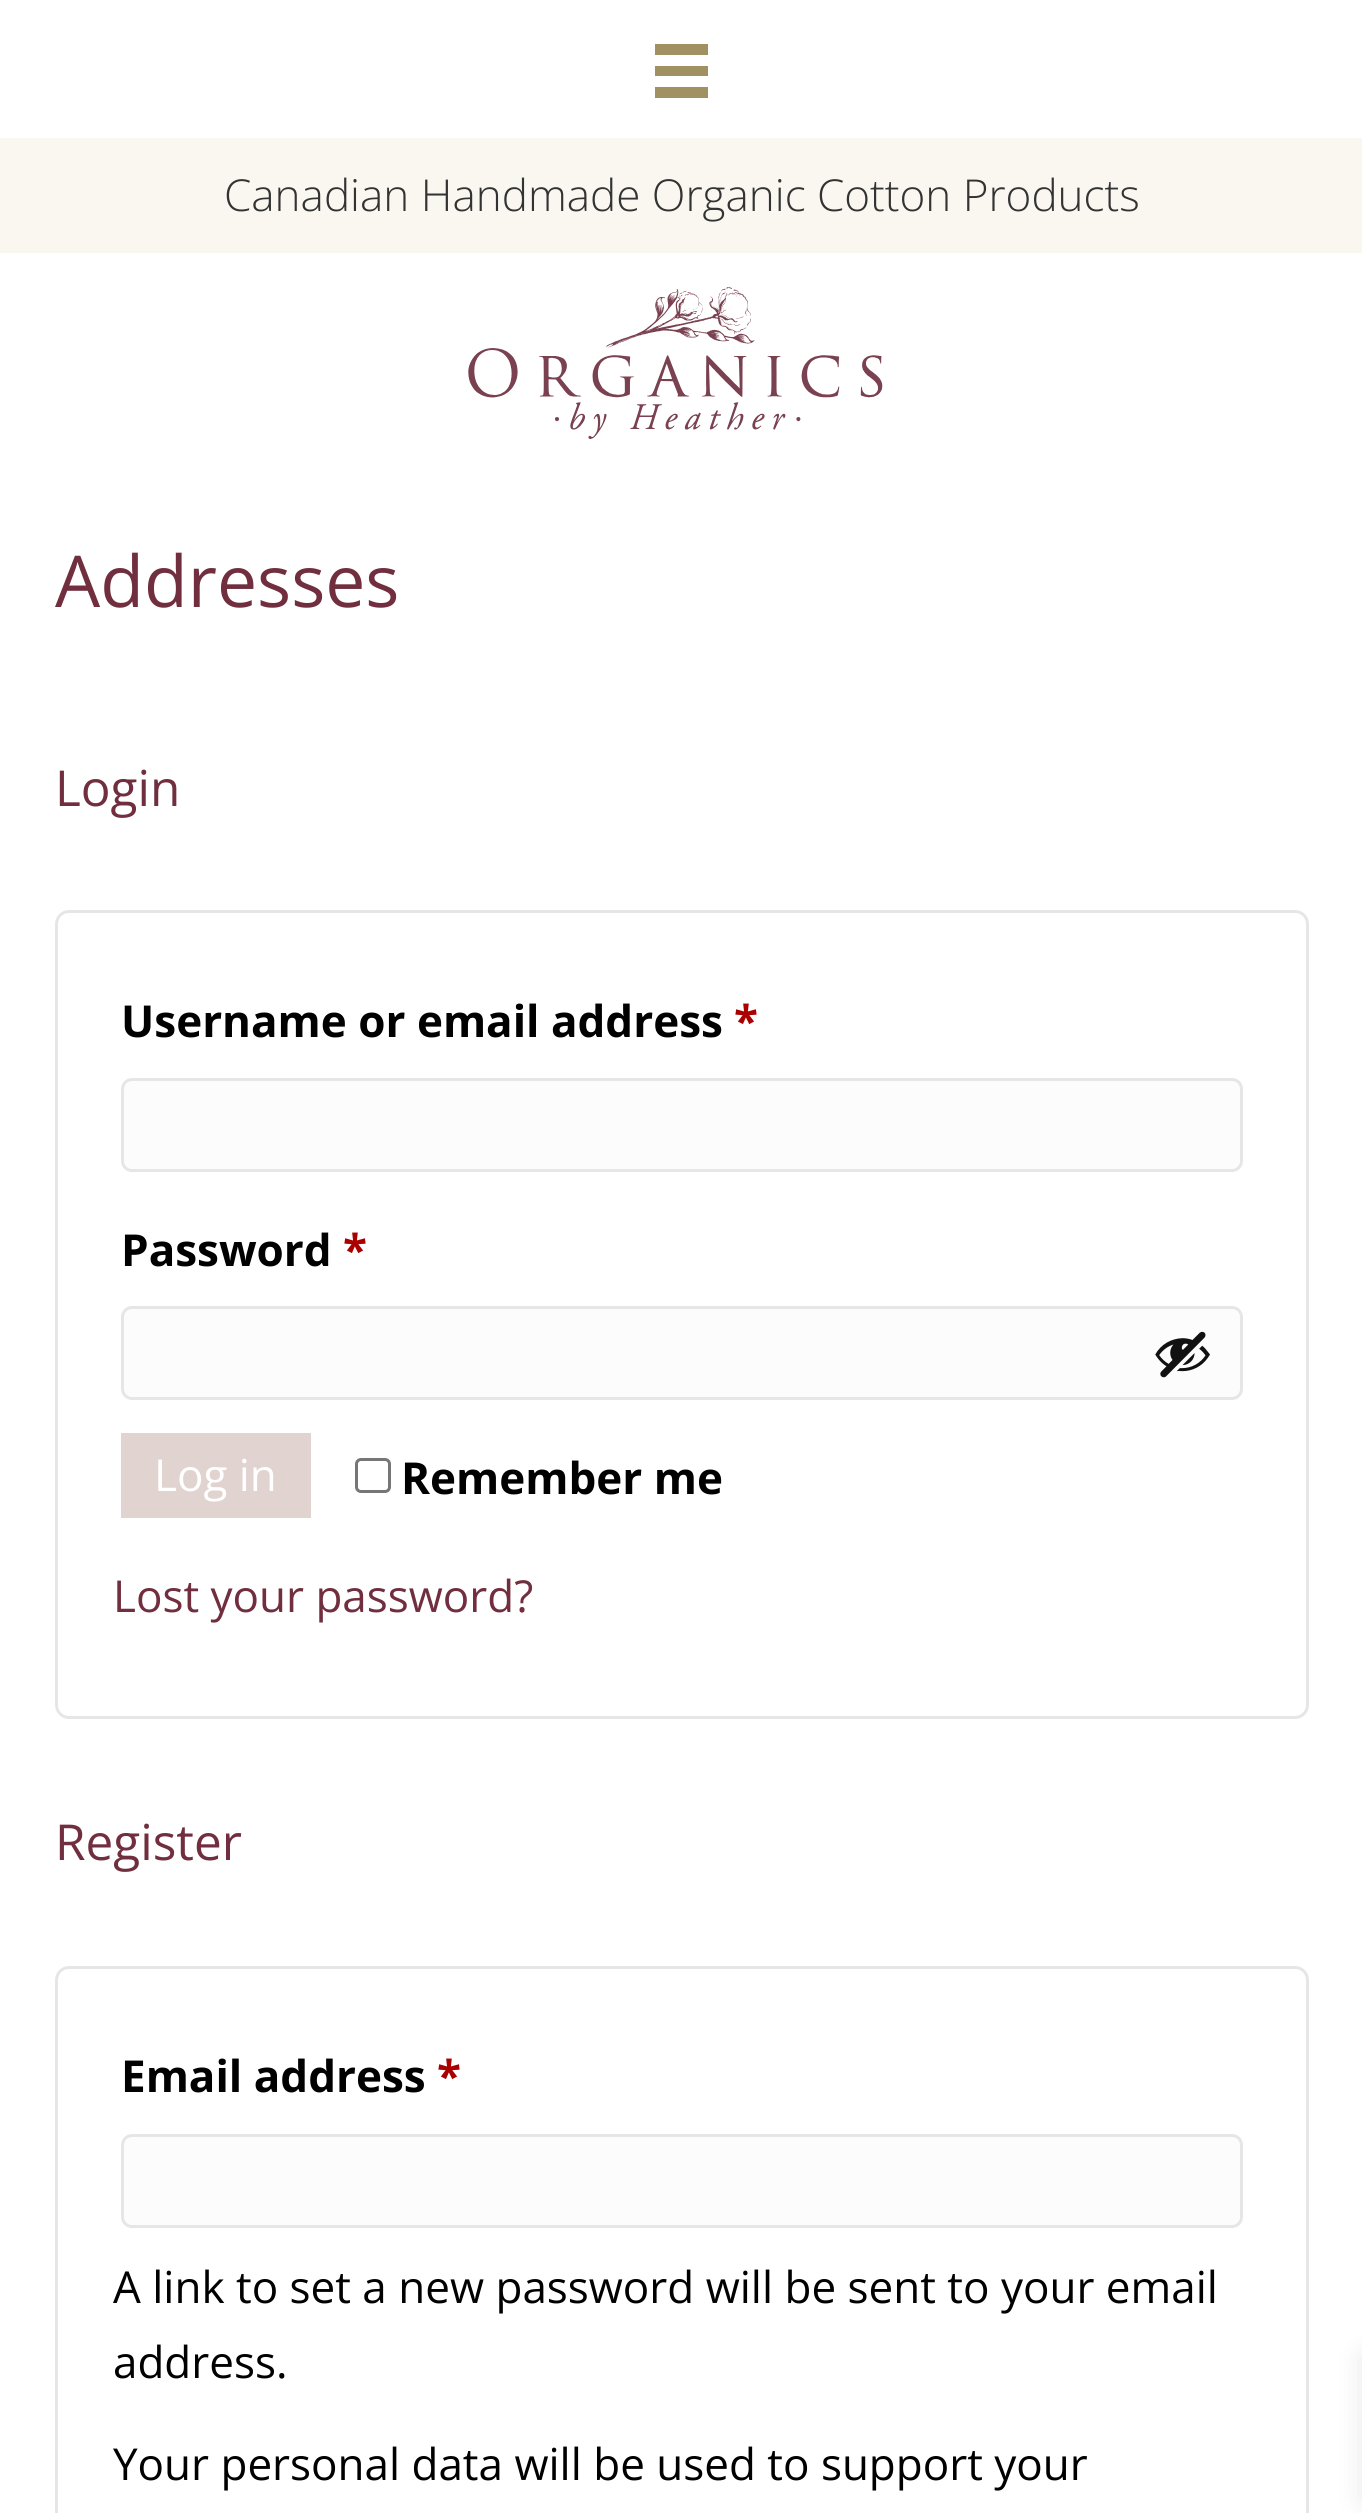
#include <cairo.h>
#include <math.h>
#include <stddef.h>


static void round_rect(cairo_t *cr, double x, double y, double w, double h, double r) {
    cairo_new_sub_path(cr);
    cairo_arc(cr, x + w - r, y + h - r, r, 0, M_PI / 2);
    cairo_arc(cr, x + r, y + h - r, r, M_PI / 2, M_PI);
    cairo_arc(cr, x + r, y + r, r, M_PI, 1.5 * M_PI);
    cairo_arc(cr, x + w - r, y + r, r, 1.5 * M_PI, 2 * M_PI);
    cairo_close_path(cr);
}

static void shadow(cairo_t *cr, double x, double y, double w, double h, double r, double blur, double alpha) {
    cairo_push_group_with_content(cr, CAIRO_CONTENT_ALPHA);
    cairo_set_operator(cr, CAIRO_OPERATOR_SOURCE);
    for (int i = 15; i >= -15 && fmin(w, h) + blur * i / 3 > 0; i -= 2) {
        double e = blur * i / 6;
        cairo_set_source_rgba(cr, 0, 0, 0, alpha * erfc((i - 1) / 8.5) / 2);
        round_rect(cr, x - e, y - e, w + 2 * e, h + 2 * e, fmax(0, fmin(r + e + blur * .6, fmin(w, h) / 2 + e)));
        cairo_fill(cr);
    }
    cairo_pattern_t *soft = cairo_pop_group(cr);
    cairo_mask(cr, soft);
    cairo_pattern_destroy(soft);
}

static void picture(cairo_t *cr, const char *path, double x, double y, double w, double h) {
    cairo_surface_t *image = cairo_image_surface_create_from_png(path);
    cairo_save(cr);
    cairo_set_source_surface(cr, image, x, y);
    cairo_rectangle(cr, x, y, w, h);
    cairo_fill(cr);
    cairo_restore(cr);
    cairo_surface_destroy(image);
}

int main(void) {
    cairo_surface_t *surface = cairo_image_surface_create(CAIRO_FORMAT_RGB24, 1362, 2513);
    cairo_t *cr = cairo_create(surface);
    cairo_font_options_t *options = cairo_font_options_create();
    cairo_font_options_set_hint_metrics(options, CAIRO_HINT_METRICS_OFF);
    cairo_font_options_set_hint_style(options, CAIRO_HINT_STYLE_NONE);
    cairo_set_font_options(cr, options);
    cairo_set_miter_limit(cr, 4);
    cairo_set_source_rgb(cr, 1, 1, 1);
    cairo_paint(cr);
    cairo_set_source_rgb(cr, 0.627, 0.565, 0.384);
    cairo_rectangle(cr, 655, 44, 53, 11);
    cairo_fill(cr);
    cairo_rectangle(cr, 655, 66, 53, 10);
    cairo_fill(cr);
    cairo_rectangle(cr, 655, 87, 53, 11);
    cairo_fill(cr);
    cairo_set_source_rgb(cr, 0.98, 0.965, 0.945);
    cairo_rectangle(cr, 0, 138, 1362, 115);
    cairo_fill(cr);
    cairo_select_font_face(cr, "Open Sans Light", CAIRO_FONT_SLANT_NORMAL, CAIRO_FONT_WEIGHT_NORMAL);
    cairo_set_font_size(cr, 44);
    cairo_set_source_rgb(cr, 0.2, 0.2, 0.2);
    cairo_move_to(cr, 224, 211);
    cairo_show_text(cr, "Canadian Handmade Organic Cotton Products");
    picture(cr, "img1.png", 468, 287, 415, 152);
    cairo_select_font_face(cr, "Open Sans", CAIRO_FONT_SLANT_NORMAL, CAIRO_FONT_WEIGHT_NORMAL);
    cairo_set_font_size(cr, 71.5);
    cairo_set_source_rgb(cr, 0.439, 0.18, 0.243);
    cairo_move_to(cr, 55, 607);
    cairo_show_text(cr, "Addresses");
    cairo_set_font_size(cr, 49.5);
    cairo_move_to(cr, 55, 806);
    cairo_show_text(cr, "Login");
    round_rect(cr, 56.5, 911.5, 1251, 806, 12.5);
    cairo_set_source_rgb(cr, 0.902, 0.902, 0.902);
    cairo_set_line_width(cr, 3);
    cairo_stroke(cr);
    cairo_select_font_face(cr, "Open Sans", CAIRO_FONT_SLANT_NORMAL, CAIRO_FONT_WEIGHT_BOLD);
    cairo_set_font_size(cr, 44);
    cairo_set_source_rgb(cr, 0, 0, 0);
    cairo_move_to(cr, 121, 1037);
    cairo_show_text(cr, "Username or email address");
    cairo_set_source_rgb(cr, 0.667, 0, 0);
    cairo_move_to(cr, 734, 1037);
    cairo_show_text(cr, "*");
    cairo_set_source_rgb(cr, 0.988, 0.988, 0.988);
    round_rect(cr, 122.5, 1079.5, 1119, 91, 9.5);
    cairo_fill_preserve(cr);
    cairo_set_source_rgb(cr, 0.902, 0.902, 0.902);
    cairo_stroke(cr);
    cairo_set_source_rgb(cr, 0, 0, 0);
    cairo_move_to(cr, 121, 1266);
    cairo_show_text(cr, "Password");
    cairo_set_source_rgb(cr, 0.667, 0, 0);
    cairo_move_to(cr, 343, 1266);
    cairo_show_text(cr, "*");
    cairo_set_source_rgb(cr, 0.988, 0.988, 0.988);
    round_rect(cr, 122.5, 1307.5, 1119, 91, 9.5);
    cairo_fill_preserve(cr);
    cairo_set_source_rgb(cr, 0.902, 0.902, 0.902);
    cairo_stroke(cr);
    picture(cr, "img2.png", 1155, 1331, 55, 47);
    cairo_set_source_rgb(cr, 0.878, 0.827, 0.816);
    cairo_rectangle(cr, 121, 1433, 190, 85);
    cairo_fill(cr);
    cairo_select_font_face(cr, "Open Sans", CAIRO_FONT_SLANT_NORMAL, CAIRO_FONT_WEIGHT_NORMAL);
    cairo_set_source_rgb(cr, 1, 1, 1);
    cairo_move_to(cr, 154, 1491);
    cairo_show_text(cr, "Log in");
    round_rect(cr, 356.5, 1459.5, 33, 32, 4.5);
    cairo_set_source_rgb(cr, 0.463, 0.463, 0.463);
    cairo_stroke(cr);
    cairo_select_font_face(cr, "Open Sans", CAIRO_FONT_SLANT_NORMAL, CAIRO_FONT_WEIGHT_BOLD);
    cairo_set_source_rgb(cr, 0, 0, 0);
    cairo_move_to(cr, 401, 1494);
    cairo_show_text(cr, "Remember me");
    cairo_select_font_face(cr, "Open Sans", CAIRO_FONT_SLANT_NORMAL, CAIRO_FONT_WEIGHT_NORMAL);
    cairo_set_source_rgb(cr, 0.439, 0.18, 0.243);
    cairo_move_to(cr, 113, 1612);
    cairo_show_text(cr, "Lost your password?");
    cairo_set_font_size(cr, 49.5);
    cairo_move_to(cr, 55, 1860);
    cairo_show_text(cr, "Register");
    round_rect(cr, 56.5, 1967.5, 1251, 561, 12.5);
    cairo_set_source_rgb(cr, 0.902, 0.902, 0.902);
    cairo_stroke(cr);
    cairo_select_font_face(cr, "Open Sans", CAIRO_FONT_SLANT_NORMAL, CAIRO_FONT_WEIGHT_BOLD);
    cairo_set_font_size(cr, 44);
    cairo_set_source_rgb(cr, 0, 0, 0);
    cairo_move_to(cr, 121, 2092);
    cairo_show_text(cr, "Email address");
    cairo_set_source_rgb(cr, 0.667, 0, 0);
    cairo_move_to(cr, 437, 2092);
    cairo_show_text(cr, "*");
    cairo_set_source_rgb(cr, 0.988, 0.988, 0.988);
    round_rect(cr, 122.5, 2135.5, 1119, 91, 9.5);
    cairo_fill_preserve(cr);
    cairo_set_source_rgb(cr, 0.902, 0.902, 0.902);
    cairo_stroke(cr);
    cairo_select_font_face(cr, "Open Sans", CAIRO_FONT_SLANT_NORMAL, CAIRO_FONT_WEIGHT_NORMAL);
    cairo_set_source_rgb(cr, 0, 0, 0);
    cairo_move_to(cr, 113, 2303);
    cairo_show_text(cr, "A link to set a new password will be sent to your email");
    cairo_move_to(cr, 113, 2378);
    cairo_show_text(cr, "address.");
    cairo_move_to(cr, 113, 2480);
    cairo_show_text(cr, "Your personal data will be used to support your");
    cairo_set_source_rgb(cr, 0, 0, 0);
    shadow(cr, 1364, 2357, 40, 143, 0, 14, 0.1);
    cairo_surface_write_to_png(surface, "page.png");
    cairo_font_options_destroy(options);
    cairo_destroy(cr);
    cairo_surface_destroy(surface);
    return 0;
}
